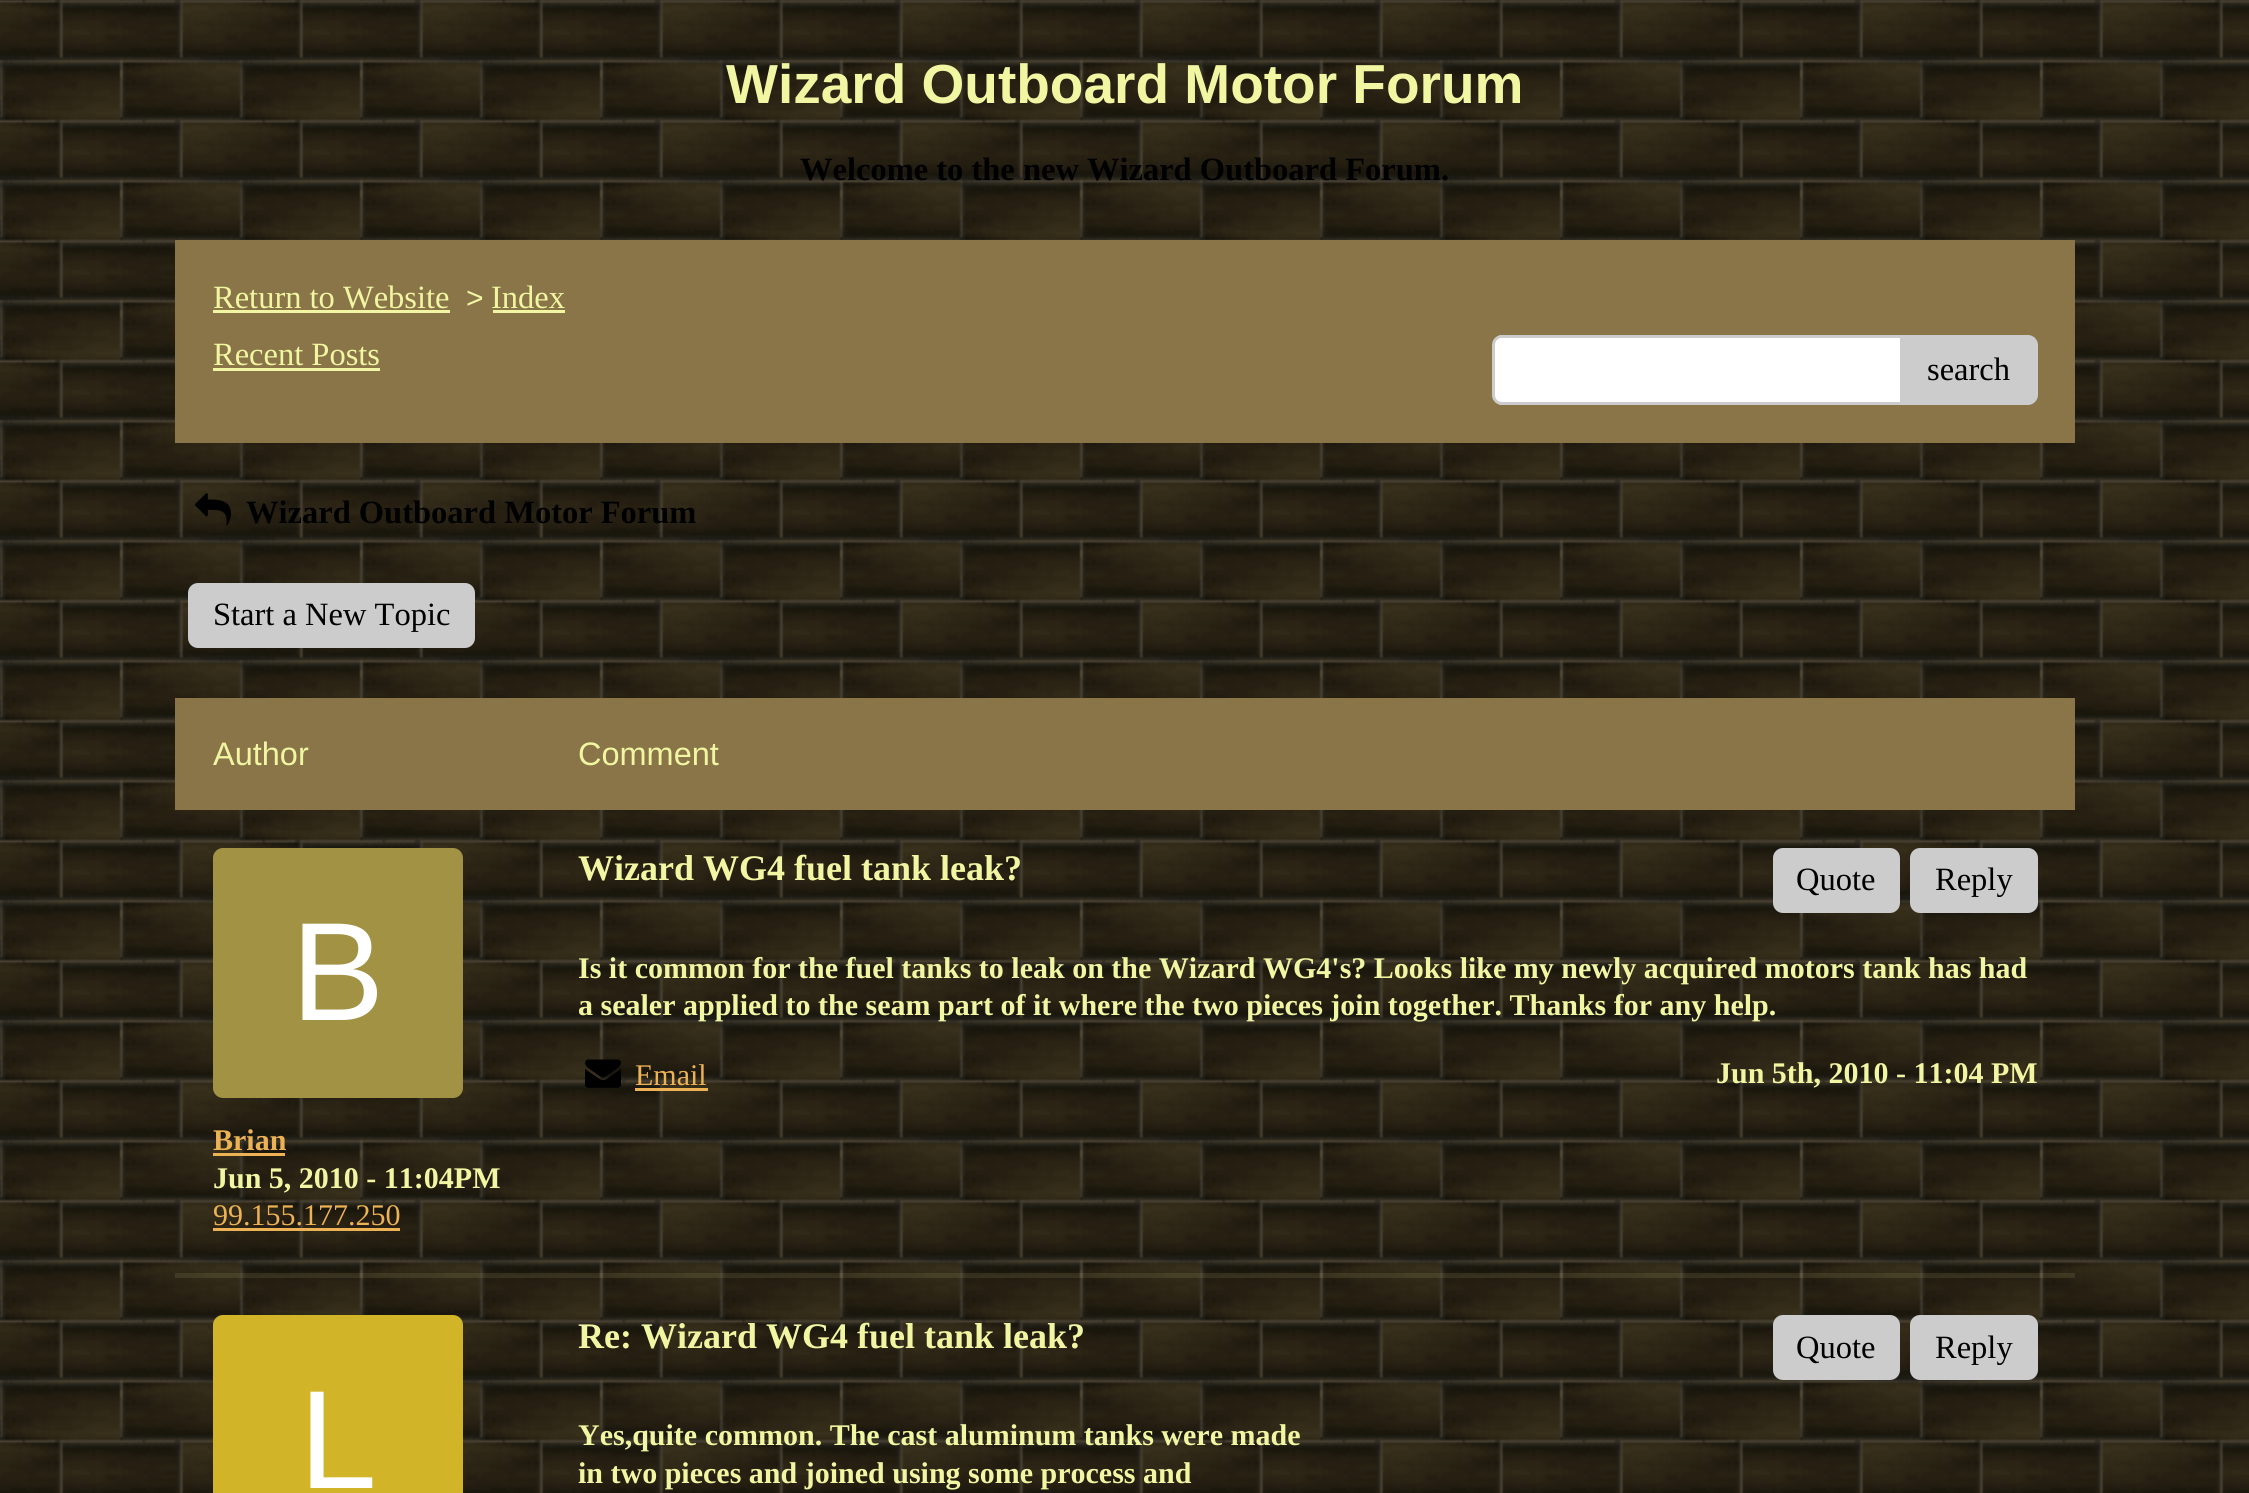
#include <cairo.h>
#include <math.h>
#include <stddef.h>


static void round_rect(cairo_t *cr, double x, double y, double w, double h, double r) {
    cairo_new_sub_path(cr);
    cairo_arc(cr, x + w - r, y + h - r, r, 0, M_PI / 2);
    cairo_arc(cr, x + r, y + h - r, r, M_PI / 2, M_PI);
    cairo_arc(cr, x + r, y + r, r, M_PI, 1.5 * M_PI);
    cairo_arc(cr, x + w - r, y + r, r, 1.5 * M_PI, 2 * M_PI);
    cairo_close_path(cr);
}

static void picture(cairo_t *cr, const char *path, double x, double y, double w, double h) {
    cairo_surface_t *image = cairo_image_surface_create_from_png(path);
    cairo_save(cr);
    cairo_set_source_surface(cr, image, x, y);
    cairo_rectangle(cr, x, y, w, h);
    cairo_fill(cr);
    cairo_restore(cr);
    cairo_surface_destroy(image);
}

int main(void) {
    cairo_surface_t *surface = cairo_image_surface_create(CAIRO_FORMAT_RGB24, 2249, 1493);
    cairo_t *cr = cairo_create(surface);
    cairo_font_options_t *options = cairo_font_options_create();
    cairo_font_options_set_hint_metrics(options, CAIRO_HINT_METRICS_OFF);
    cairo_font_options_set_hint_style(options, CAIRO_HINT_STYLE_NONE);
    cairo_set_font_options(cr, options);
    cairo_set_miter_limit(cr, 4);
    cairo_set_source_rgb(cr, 1, 1, 1);
    cairo_paint(cr);
    picture(cr, "img1.png", 0, 0, 2249, 1493);
    cairo_select_font_face(cr, "Liberation Sans", CAIRO_FONT_SLANT_NORMAL, CAIRO_FONT_WEIGHT_BOLD);
    cairo_set_font_size(cr, 55);
    cairo_set_source_rgb(cr, 0.941, 0.961, 0.631);
    cairo_move_to(cr, 726, 103);
    cairo_show_text(cr, "Wizard Outboard Motor Forum");
    cairo_select_font_face(cr, "Liberation Serif", CAIRO_FONT_SLANT_NORMAL, CAIRO_FONT_WEIGHT_BOLD);
    cairo_set_font_size(cr, 32.5);
    cairo_set_source_rgb(cr, 0, 0, 0);
    cairo_move_to(cr, 800, 180);
    cairo_show_text(cr, "Welcome to the new Wizard Outboard Forum.");
    cairo_set_source_rgb(cr, 0.537, 0.459, 0.282);
    cairo_rectangle(cr, 175, 240, 1900, 203);
    cairo_fill(cr);
    cairo_select_font_face(cr, "Liberation Serif", CAIRO_FONT_SLANT_NORMAL, CAIRO_FONT_WEIGHT_NORMAL);
    cairo_set_source_rgb(cr, 0.941, 0.961, 0.631);
    cairo_move_to(cr, 213, 308);
    cairo_show_text(cr, "Return to Website");
    cairo_rectangle(cr, 213, 310, 237, 3);
    cairo_fill(cr);
    cairo_select_font_face(cr, "Liberation Sans", CAIRO_FONT_SLANT_NORMAL, CAIRO_FONT_WEIGHT_NORMAL);
    cairo_set_font_size(cr, 30);
    cairo_move_to(cr, 466, 308);
    cairo_show_text(cr, ">");
    cairo_select_font_face(cr, "Liberation Serif", CAIRO_FONT_SLANT_NORMAL, CAIRO_FONT_WEIGHT_NORMAL);
    cairo_set_font_size(cr, 32.5);
    cairo_move_to(cr, 491, 308);
    cairo_show_text(cr, "Index");
    cairo_rectangle(cr, 493, 310, 72, 3);
    cairo_fill(cr);
    cairo_move_to(cr, 213, 365);
    cairo_show_text(cr, "Recent Posts");
    cairo_rectangle(cr, 213, 368, 167, 3);
    cairo_fill(cr);
    cairo_set_source_rgb(cr, 1, 1, 1);
    round_rect(cr, 1493, 335, 520, 70, 10);
    cairo_fill(cr);
    cairo_set_source_rgb(cr, 0.8, 0.8, 0.8);
    cairo_set_fill_rule(cr, CAIRO_FILL_RULE_EVEN_ODD);
    cairo_new_path(cr);
    cairo_move_to(cr, 1502, 335);
    cairo_line_to(cr, 2002, 335);
    cairo_curve_to(cr, 2008, 335, 2012, 339, 2012, 345);
    cairo_line_to(cr, 2012, 395);
    cairo_curve_to(cr, 2012, 401, 2008, 405, 2002, 405);
    cairo_line_to(cr, 1502, 405);
    cairo_curve_to(cr, 1497, 405, 1492, 401, 1492, 395);
    cairo_line_to(cr, 1492, 345);
    cairo_curve_to(cr, 1492, 339, 1497, 335, 1502, 335);
    cairo_close_path(cr);
    cairo_move_to(cr, 1502, 338);
    cairo_line_to(cr, 2002, 338);
    cairo_curve_to(cr, 2008, 338, 2012, 341, 2012, 345);
    cairo_line_to(cr, 2012, 395);
    cairo_curve_to(cr, 2012, 399, 2008, 402, 2002, 402);
    cairo_line_to(cr, 1502, 402);
    cairo_curve_to(cr, 1498, 402, 1495, 399, 1495, 395);
    cairo_line_to(cr, 1495, 345);
    cairo_curve_to(cr, 1495, 341, 1498, 338, 1502, 338);
    cairo_close_path(cr);
    cairo_fill(cr);
    cairo_new_path(cr);
    cairo_move_to(cr, 1901.5, 336.5);
    cairo_line_to(cr, 2028, 336.5);
    cairo_curve_to(cr, 2032.5, 336.5, 2036.5, 340.5, 2036.5, 345);
    cairo_line_to(cr, 2036.5, 395);
    cairo_curve_to(cr, 2036.5, 399.5, 2032.5, 403.5, 2028, 403.5);
    cairo_line_to(cr, 1901.5, 403.5);
    cairo_close_path(cr);
    cairo_fill_preserve(cr);
    cairo_set_line_width(cr, 3);
    cairo_stroke(cr);
    cairo_set_source_rgb(cr, 0, 0, 0);
    cairo_move_to(cr, 1927, 380);
    cairo_show_text(cr, "search");
    picture(cr, "img2.png", 195, 493, 36, 33);
    cairo_select_font_face(cr, "Liberation Serif", CAIRO_FONT_SLANT_NORMAL, CAIRO_FONT_WEIGHT_BOLD);
    cairo_move_to(cr, 246, 523);
    cairo_show_text(cr, "Wizard Outboard Motor Forum");
    cairo_set_source_rgb(cr, 0.8, 0.8, 0.8);
    round_rect(cr, 188, 583, 287, 65, 10);
    cairo_fill(cr);
    cairo_select_font_face(cr, "Liberation Serif", CAIRO_FONT_SLANT_NORMAL, CAIRO_FONT_WEIGHT_NORMAL);
    cairo_set_source_rgb(cr, 0, 0, 0);
    cairo_move_to(cr, 213, 625);
    cairo_show_text(cr, "Start a New Topic");
    cairo_set_source_rgb(cr, 0.537, 0.459, 0.282);
    cairo_rectangle(cr, 175, 698, 1900, 112);
    cairo_fill(cr);
    cairo_select_font_face(cr, "Liberation Sans", CAIRO_FONT_SLANT_NORMAL, CAIRO_FONT_WEIGHT_NORMAL);
    cairo_set_source_rgb(cr, 0.941, 0.961, 0.631);
    cairo_move_to(cr, 213, 765);
    cairo_show_text(cr, "Author");
    cairo_move_to(cr, 578, 765);
    cairo_show_text(cr, "Comment");
    cairo_set_source_rgba(cr, 0.941, 0.961, 0.631, 0.1);
    cairo_rectangle(cr, 175, 1273, 1900, 5);
    cairo_fill(cr);
    cairo_set_source_rgb(cr, 0.635, 0.576, 0.267);
    round_rect(cr, 213, 848, 250, 250, 10);
    cairo_fill(cr);
    cairo_set_font_size(cr, 140);
    cairo_set_source_rgb(cr, 1, 1, 1);
    cairo_move_to(cr, 291, 1020);
    cairo_show_text(cr, "B");
    cairo_select_font_face(cr, "Liberation Serif", CAIRO_FONT_SLANT_NORMAL, CAIRO_FONT_WEIGHT_BOLD);
    cairo_set_font_size(cr, 30);
    cairo_set_source_rgb(cr, 0.922, 0.698, 0.329);
    cairo_move_to(cr, 213, 1150);
    cairo_show_text(cr, "Brian");
    cairo_rectangle(cr, 213, 1153, 72, 3);
    cairo_fill(cr);
    cairo_set_source_rgb(cr, 0.941, 0.961, 0.631);
    cairo_move_to(cr, 213, 1188);
    cairo_show_text(cr, "Jun 5, 2010 - 11:04PM");
    cairo_select_font_face(cr, "Liberation Serif", CAIRO_FONT_SLANT_NORMAL, CAIRO_FONT_WEIGHT_NORMAL);
    cairo_set_source_rgb(cr, 0.922, 0.698, 0.329);
    cairo_move_to(cr, 213, 1225);
    cairo_show_text(cr, "99.155.177.250");
    cairo_rectangle(cr, 213, 1228, 187, 3);
    cairo_fill(cr);
    cairo_select_font_face(cr, "Liberation Serif", CAIRO_FONT_SLANT_NORMAL, CAIRO_FONT_WEIGHT_BOLD);
    cairo_set_font_size(cr, 36);
    cairo_set_source_rgb(cr, 0.941, 0.961, 0.631);
    cairo_move_to(cr, 578, 880);
    cairo_show_text(cr, "Wizard WG4 fuel tank leak?");
    cairo_set_source_rgb(cr, 0.8, 0.8, 0.8);
    round_rect(cr, 1773, 848, 127, 65, 10);
    cairo_fill(cr);
    cairo_select_font_face(cr, "Liberation Serif", CAIRO_FONT_SLANT_NORMAL, CAIRO_FONT_WEIGHT_NORMAL);
    cairo_set_font_size(cr, 32.5);
    cairo_set_source_rgb(cr, 0, 0, 0);
    cairo_move_to(cr, 1796, 890);
    cairo_show_text(cr, "Quote");
    cairo_set_source_rgb(cr, 0.8, 0.8, 0.8);
    round_rect(cr, 1910, 848, 128, 65, 10);
    cairo_fill(cr);
    cairo_set_source_rgb(cr, 0, 0, 0);
    cairo_move_to(cr, 1935, 890);
    cairo_show_text(cr, "Reply");
    cairo_select_font_face(cr, "Liberation Serif", CAIRO_FONT_SLANT_NORMAL, CAIRO_FONT_WEIGHT_BOLD);
    cairo_set_font_size(cr, 30);
    cairo_set_source_rgb(cr, 0.941, 0.961, 0.631);
    cairo_move_to(cr, 578, 978);
    cairo_show_text(cr, "Is it common for the fuel tanks to leak on the Wizard WG4's? Looks like my newly acquired motors tank has had");
    cairo_move_to(cr, 578, 1015);
    cairo_show_text(cr, "a sealer applied to the seam part of it where the two pieces join together. Thanks for any help.");
    picture(cr, "img3.png", 585, 1059, 36, 29);
    cairo_select_font_face(cr, "Liberation Serif", CAIRO_FONT_SLANT_NORMAL, CAIRO_FONT_WEIGHT_NORMAL);
    cairo_set_source_rgb(cr, 0.922, 0.698, 0.329);
    cairo_move_to(cr, 635, 1085);
    cairo_show_text(cr, "Email");
    cairo_rectangle(cr, 635, 1088, 73, 3);
    cairo_fill(cr);
    cairo_select_font_face(cr, "Liberation Serif", CAIRO_FONT_SLANT_NORMAL, CAIRO_FONT_WEIGHT_BOLD);
    cairo_set_source_rgb(cr, 0.941, 0.961, 0.631);
    cairo_move_to(cr, 1716, 1083);
    cairo_show_text(cr, "Jun 5th, 2010 - 11:04 PM");
    cairo_set_source_rgb(cr, 0.824, 0.706, 0.157);
    round_rect(cr, 213, 1315, 250, 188, 10);
    cairo_fill(cr);
    cairo_select_font_face(cr, "Liberation Sans", CAIRO_FONT_SLANT_NORMAL, CAIRO_FONT_WEIGHT_NORMAL);
    cairo_set_font_size(cr, 140);
    cairo_set_source_rgb(cr, 1, 1, 1);
    cairo_move_to(cr, 299, 1488);
    cairo_show_text(cr, "L");
    cairo_select_font_face(cr, "Liberation Serif", CAIRO_FONT_SLANT_NORMAL, CAIRO_FONT_WEIGHT_BOLD);
    cairo_set_font_size(cr, 36);
    cairo_set_source_rgb(cr, 0.941, 0.961, 0.631);
    cairo_move_to(cr, 578, 1348);
    cairo_show_text(cr, "Re: Wizard WG4 fuel tank leak?");
    cairo_set_source_rgb(cr, 0.8, 0.8, 0.8);
    round_rect(cr, 1773, 1315, 127, 65, 10);
    cairo_fill(cr);
    cairo_select_font_face(cr, "Liberation Serif", CAIRO_FONT_SLANT_NORMAL, CAIRO_FONT_WEIGHT_NORMAL);
    cairo_set_font_size(cr, 32.5);
    cairo_set_source_rgb(cr, 0, 0, 0);
    cairo_move_to(cr, 1796, 1358);
    cairo_show_text(cr, "Quote");
    cairo_set_source_rgb(cr, 0.8, 0.8, 0.8);
    round_rect(cr, 1910, 1315, 128, 65, 10);
    cairo_fill(cr);
    cairo_set_source_rgb(cr, 0, 0, 0);
    cairo_move_to(cr, 1935, 1358);
    cairo_show_text(cr, "Reply");
    cairo_select_font_face(cr, "Liberation Serif", CAIRO_FONT_SLANT_NORMAL, CAIRO_FONT_WEIGHT_BOLD);
    cairo_set_font_size(cr, 30);
    cairo_set_source_rgb(cr, 0.941, 0.961, 0.631);
    cairo_move_to(cr, 578, 1445);
    cairo_show_text(cr, "Yes,quite common. The cast aluminum tanks were made");
    cairo_move_to(cr, 578, 1483);
    cairo_show_text(cr, "in two pieces and joined using some process and");
    cairo_surface_write_to_png(surface, "page.png");
    cairo_font_options_destroy(options);
    cairo_destroy(cr);
    cairo_surface_destroy(surface);
    return 0;
}
